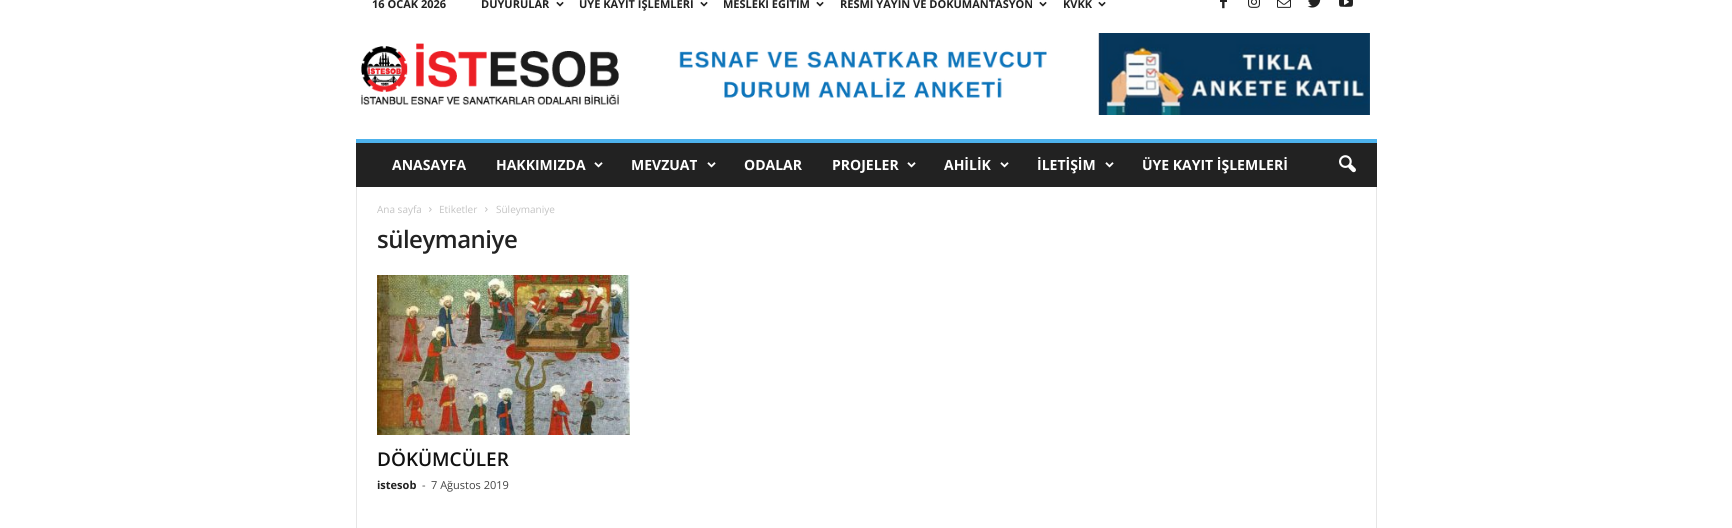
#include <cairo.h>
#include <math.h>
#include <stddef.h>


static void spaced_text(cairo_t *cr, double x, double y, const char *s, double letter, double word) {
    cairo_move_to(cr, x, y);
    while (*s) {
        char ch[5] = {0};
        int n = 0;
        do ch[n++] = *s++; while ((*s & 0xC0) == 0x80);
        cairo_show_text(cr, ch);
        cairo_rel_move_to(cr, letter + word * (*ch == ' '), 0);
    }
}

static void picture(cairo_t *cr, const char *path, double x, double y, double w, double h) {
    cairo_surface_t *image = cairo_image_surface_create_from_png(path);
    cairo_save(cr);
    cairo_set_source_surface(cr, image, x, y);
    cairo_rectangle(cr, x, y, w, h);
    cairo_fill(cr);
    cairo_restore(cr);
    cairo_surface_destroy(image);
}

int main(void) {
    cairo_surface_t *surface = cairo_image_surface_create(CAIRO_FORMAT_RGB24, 1732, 528);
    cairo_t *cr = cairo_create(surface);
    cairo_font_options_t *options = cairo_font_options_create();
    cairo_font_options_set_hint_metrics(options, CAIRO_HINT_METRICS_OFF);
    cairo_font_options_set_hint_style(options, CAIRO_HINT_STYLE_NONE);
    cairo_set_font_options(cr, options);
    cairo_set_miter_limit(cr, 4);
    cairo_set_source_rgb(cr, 1, 1, 1);
    cairo_paint(cr);
    cairo_select_font_face(cr, "Open Sans", CAIRO_FONT_SLANT_NORMAL, CAIRO_FONT_WEIGHT_BOLD);
    cairo_set_font_size(cr, 11);
    cairo_set_source_rgb(cr, 0.133, 0.133, 0.133);
    cairo_move_to(cr, 372, 8);
    cairo_show_text(cr, "16 OCAK 2026");
    cairo_move_to(cr, 481, 8);
    cairo_show_text(cr, "DUYURULAR");
    picture(cr, "img1.png", 556, 1, 8, 6);
    cairo_move_to(cr, 579, 8);
    cairo_show_text(cr, "ÜYE KAYIT İŞLEMLERİ");
    picture(cr, "img1.png", 700, 1, 8, 6);
    cairo_move_to(cr, 723, 8);
    cairo_show_text(cr, "MESLEKİ EĞİTİM");
    picture(cr, "img1.png", 816, 1, 8, 6);
    cairo_move_to(cr, 840, 8);
    cairo_show_text(cr, "RESMİ YAYIN VE DOKÜMANTASYON");
    picture(cr, "img1.png", 1039, 1, 8, 6);
    cairo_move_to(cr, 1063, 8);
    cairo_show_text(cr, "KVKK");
    picture(cr, "img1.png", 1098, 1, 8, 6);
    picture(cr, "img2.png", 1220, 0, 7, 9);
    picture(cr, "img3.png", 1248, 0, 12, 8);
    picture(cr, "img4.png", 1277, 0, 14, 8);
    picture(cr, "img5.png", 1307, 0, 14, 8);
    picture(cr, "img6.png", 1339, 0, 14, 7);
    picture(cr, "img7.png", 361, 43, 258, 62);
    picture(cr, "img8.png", 679, 33, 691, 82);
    cairo_rectangle(cr, 356, 143, 1021, 44);
    cairo_fill(cr);
    cairo_set_source_rgb(cr, 0.302, 0.698, 0.925);
    cairo_rectangle(cr, 356, 139, 1021, 4);
    cairo_fill(cr);
    cairo_set_font_size(cr, 14);
    cairo_set_source_rgb(cr, 1, 1, 1);
    cairo_move_to(cr, 392, 170);
    cairo_show_text(cr, "ANASAYFA");
    cairo_move_to(cr, 496, 170);
    cairo_show_text(cr, "HAKKIMIZDA");
    picture(cr, "img9.png", 594, 162, 9, 6);
    cairo_move_to(cr, 631, 170);
    cairo_show_text(cr, "MEVZUAT");
    picture(cr, "img9.png", 707, 162, 9, 6);
    cairo_move_to(cr, 744, 170);
    cairo_show_text(cr, "ODALAR");
    cairo_move_to(cr, 832, 170);
    cairo_show_text(cr, "PROJELER");
    picture(cr, "img9.png", 907, 162, 9, 6);
    cairo_move_to(cr, 944, 170);
    cairo_show_text(cr, "AHİLİK");
    picture(cr, "img9.png", 1000, 162, 9, 6);
    cairo_move_to(cr, 1037, 170);
    cairo_show_text(cr, "İLETİŞİM");
    picture(cr, "img9.png", 1105, 162, 9, 6);
    cairo_move_to(cr, 1142, 170);
    cairo_show_text(cr, "ÜYE KAYIT İŞLEMLERİ");
    picture(cr, "img10.png", 1339, 155, 17, 18);
    cairo_set_source_rgb(cr, 0.902, 0.902, 0.902);
    cairo_rectangle(cr, 356, 187, 1, 341);
    cairo_fill(cr);
    cairo_select_font_face(cr, "Open Sans", CAIRO_FONT_SLANT_NORMAL, CAIRO_FONT_WEIGHT_NORMAL);
    cairo_set_font_size(cr, 10);
    cairo_set_source_rgb(cr, 0.765, 0.765, 0.765);
    cairo_move_to(cr, 377, 213);
    cairo_show_text(cr, "Ana sayfa");
    picture(cr, "img11.png", 429, 207, 3, 5);
    cairo_move_to(cr, 439, 213);
    cairo_show_text(cr, "Etiketler");
    picture(cr, "img11.png", 485, 207, 3, 5);
    cairo_move_to(cr, 496, 213);
    cairo_show_text(cr, "Süleymaniye");
    cairo_select_font_face(cr, "Open Sans SemiBold", CAIRO_FONT_SLANT_NORMAL, CAIRO_FONT_WEIGHT_NORMAL);
    cairo_set_font_size(cr, 24);
    cairo_set_source_rgb(cr, 0.133, 0.133, 0.133);
    spaced_text(cr, 377, 248, "süleymaniye", -0.5, 0);
    picture(cr, "img12.png", 377, 275, 253, 160);
    cairo_set_font_size(cr, 19);
    cairo_set_source_rgb(cr, 0.067, 0.067, 0.067);
    cairo_move_to(cr, 377, 466);
    cairo_show_text(cr, "DÖKÜMCÜLER");
    cairo_select_font_face(cr, "Open Sans", CAIRO_FONT_SLANT_NORMAL, CAIRO_FONT_WEIGHT_BOLD);
    cairo_set_font_size(cr, 11);
    cairo_set_source_rgb(cr, 0.133, 0.133, 0.133);
    cairo_move_to(cr, 377, 489);
    cairo_show_text(cr, "istesob");
    cairo_select_font_face(cr, "Open Sans", CAIRO_FONT_SLANT_NORMAL, CAIRO_FONT_WEIGHT_NORMAL);
    cairo_set_source_rgb(cr, 0.267, 0.267, 0.267);
    cairo_move_to(cr, 422, 489);
    cairo_show_text(cr, "-");
    cairo_move_to(cr, 431, 489);
    cairo_show_text(cr, "7 Ağustos 2019");
    cairo_set_source_rgb(cr, 0.902, 0.902, 0.902);
    cairo_rectangle(cr, 1376, 187, 1, 341);
    cairo_fill(cr);
    cairo_surface_write_to_png(surface, "page.png");
    cairo_font_options_destroy(options);
    cairo_destroy(cr);
    cairo_surface_destroy(surface);
    return 0;
}
